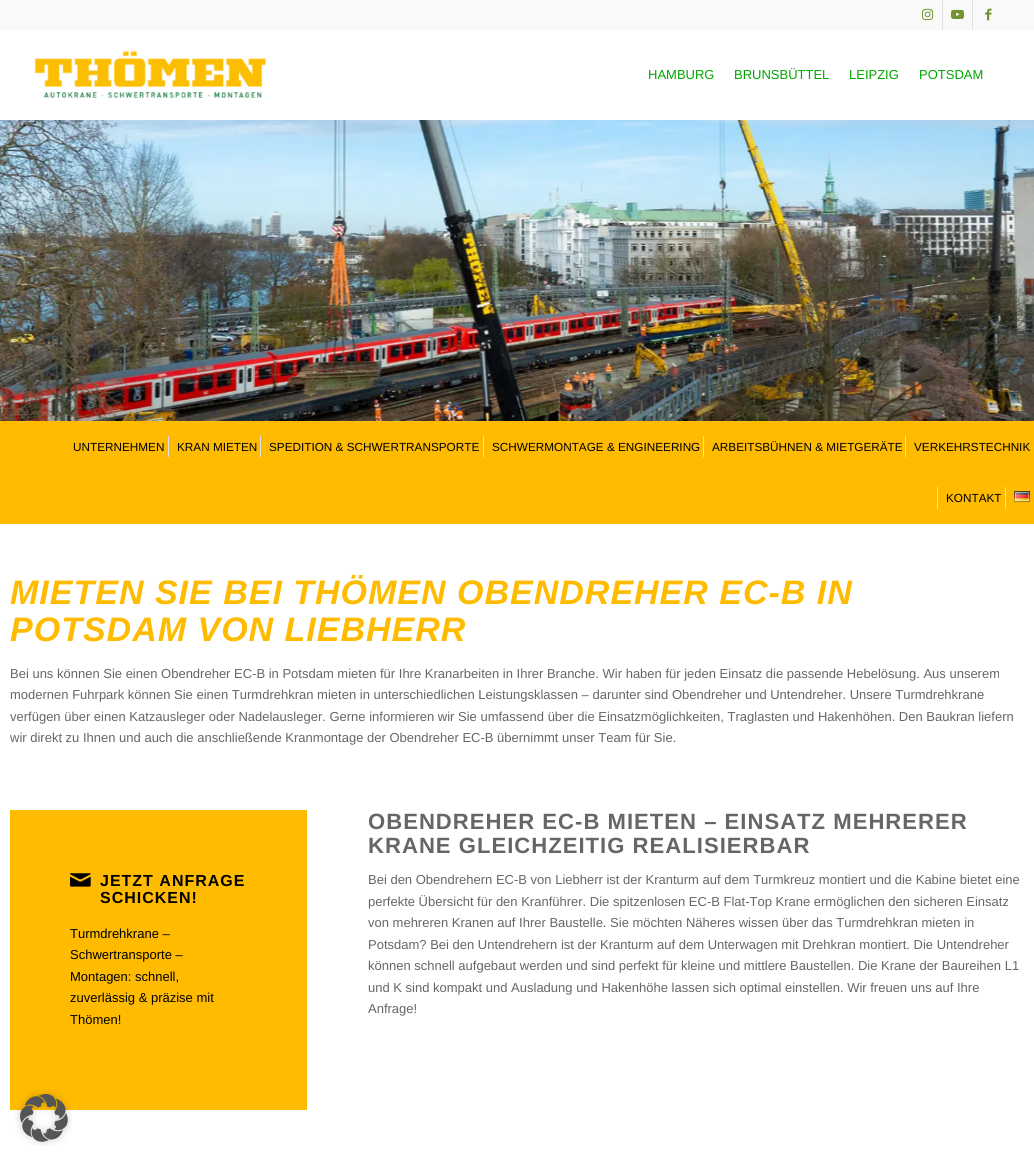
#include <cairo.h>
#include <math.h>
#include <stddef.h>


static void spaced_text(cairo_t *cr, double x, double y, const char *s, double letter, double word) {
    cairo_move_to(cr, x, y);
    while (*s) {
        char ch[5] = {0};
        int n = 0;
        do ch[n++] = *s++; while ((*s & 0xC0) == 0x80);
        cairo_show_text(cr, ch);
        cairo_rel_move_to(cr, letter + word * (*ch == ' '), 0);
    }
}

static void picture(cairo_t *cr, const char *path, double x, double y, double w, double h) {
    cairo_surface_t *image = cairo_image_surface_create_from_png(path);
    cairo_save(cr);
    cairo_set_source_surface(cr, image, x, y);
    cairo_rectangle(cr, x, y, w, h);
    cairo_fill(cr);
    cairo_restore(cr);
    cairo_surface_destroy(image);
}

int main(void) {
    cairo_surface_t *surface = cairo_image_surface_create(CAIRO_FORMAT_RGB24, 1034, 1162);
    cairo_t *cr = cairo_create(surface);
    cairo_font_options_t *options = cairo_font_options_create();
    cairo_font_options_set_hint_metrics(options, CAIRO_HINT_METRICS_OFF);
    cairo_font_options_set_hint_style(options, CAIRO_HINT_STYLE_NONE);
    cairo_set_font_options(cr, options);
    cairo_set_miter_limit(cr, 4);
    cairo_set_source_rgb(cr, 1, 1, 1);
    cairo_paint(cr);
    cairo_set_source_rgb(cr, 0.973, 0.973, 0.973);
    cairo_rectangle(cr, 0, 0, 1034, 30);
    cairo_fill(cr);
    cairo_set_source_rgb(cr, 0.882, 0.882, 0.882);
    cairo_rectangle(cr, 942, 0, 1, 30);
    cairo_fill(cr);
    picture(cr, "img1.png", 922, 8, 12, 12);
    cairo_rectangle(cr, 972, 0, 1, 30);
    cairo_fill(cr);
    picture(cr, "img2.png", 951, 9, 13, 10);
    picture(cr, "img3.png", 985, 8, 7, 13);
    picture(cr, "img4.png", 34, 50, 233, 48);
    cairo_select_font_face(cr, "Liberation Sans", CAIRO_FONT_SLANT_NORMAL, CAIRO_FONT_WEIGHT_NORMAL);
    cairo_set_font_size(cr, 13);
    cairo_set_source_rgb(cr, 0, 0.651, 0);
    cairo_move_to(cr, 648, 79);
    cairo_show_text(cr, "HAMBURG");
    cairo_move_to(cr, 734, 79);
    cairo_show_text(cr, "BRUNSBÜTTEL");
    cairo_move_to(cr, 849, 79);
    cairo_show_text(cr, "LEIPZIG");
    cairo_move_to(cr, 919, 79);
    cairo_show_text(cr, "POTSDAM");
    picture(cr, "img5.png", 0, 120, 1034, 301);
    cairo_set_source_rgb(cr, 1, 0.733, 0);
    cairo_rectangle(cr, 0, 421, 1034, 103);
    cairo_fill(cr);
    cairo_set_font_size(cr, 11.75);
    cairo_set_source_rgb(cr, 0, 0, 0);
    cairo_move_to(cr, 73, 451);
    cairo_show_text(cr, "UNTERNEHMEN");
    cairo_set_source_rgb(cr, 0.882, 0.882, 0.882);
    cairo_rectangle(cr, 168, 436, 1, 21);
    cairo_fill(cr);
    cairo_set_source_rgb(cr, 0, 0, 0);
    cairo_move_to(cr, 177, 451);
    cairo_show_text(cr, "KRAN MIETEN");
    cairo_set_source_rgb(cr, 0.882, 0.882, 0.882);
    cairo_rectangle(cr, 260, 436, 1, 21);
    cairo_fill(cr);
    cairo_set_source_rgb(cr, 0, 0, 0);
    cairo_move_to(cr, 269, 451);
    cairo_show_text(cr, "SPEDITION & SCHWERTRANSPORTE");
    cairo_set_source_rgb(cr, 0.882, 0.882, 0.882);
    cairo_rectangle(cr, 483, 436, 1, 21);
    cairo_fill(cr);
    cairo_set_source_rgb(cr, 0, 0, 0);
    cairo_move_to(cr, 492, 451);
    cairo_show_text(cr, "SCHWERMONTAGE & ENGINEERING");
    cairo_set_source_rgb(cr, 0.882, 0.882, 0.882);
    cairo_rectangle(cr, 703, 436, 1, 21);
    cairo_fill(cr);
    cairo_set_source_rgb(cr, 0, 0, 0);
    cairo_move_to(cr, 712, 451);
    cairo_show_text(cr, "ARBEITSBÜHNEN & MIETGERÄTE");
    cairo_set_source_rgb(cr, 0.882, 0.882, 0.882);
    cairo_rectangle(cr, 905, 436, 1, 21);
    cairo_fill(cr);
    cairo_set_source_rgb(cr, 0, 0, 0);
    cairo_move_to(cr, 914, 451);
    cairo_show_text(cr, "VERKEHRSTECHNIK");
    cairo_set_source_rgb(cr, 0.882, 0.882, 0.882);
    cairo_rectangle(cr, 937, 487, 1, 22);
    cairo_fill(cr);
    cairo_set_source_rgb(cr, 0, 0, 0);
    cairo_move_to(cr, 946, 502);
    cairo_show_text(cr, "KONTAKT");
    cairo_set_source_rgb(cr, 0.882, 0.882, 0.882);
    cairo_rectangle(cr, 1005, 487, 1, 22);
    cairo_fill(cr);
    picture(cr, "img6.png", 1014, 491, 16, 11);
    cairo_select_font_face(cr, "Liberation Sans", CAIRO_FONT_SLANT_ITALIC, CAIRO_FONT_WEIGHT_BOLD);
    cairo_set_font_size(cr, 34);
    cairo_set_source_rgb(cr, 1, 0.733, 0);
    spaced_text(cr, 10, 604, "MIETEN SIE BEI THÖMEN OBENDREHER EC-B IN", 1, 0);
    spaced_text(cr, 10, 641, "POTSDAM VON LIEBHERR", 1, 0);
    cairo_select_font_face(cr, "Liberation Sans", CAIRO_FONT_SLANT_NORMAL, CAIRO_FONT_WEIGHT_NORMAL);
    cairo_set_font_size(cr, 13);
    cairo_set_source_rgb(cr, 0.4, 0.4, 0.4);
    cairo_move_to(cr, 10, 678);
    cairo_show_text(cr, "Bei uns können Sie einen Obendreher EC-B in Potsdam mieten für Ihre Kranarbeiten in Ihrer Branche. Wir haben für jeden Einsatz die passende Hebelösung. Aus unserem");
    cairo_move_to(cr, 10, 699);
    cairo_show_text(cr, "modernen Fuhrpark können Sie einen Turmdrehkran mieten in unterschiedlichen Leistungsklassen – darunter sind Obendreher und Untendreher. Unsere Turmdrehkrane");
    cairo_move_to(cr, 10, 721);
    cairo_show_text(cr, "verfügen über einen Katzausleger oder Nadelausleger. Gerne informieren wir Sie umfassend über die Einsatzmöglichkeiten, Traglasten und Hakenhöhen. Den Baukran liefern");
    cairo_move_to(cr, 10, 742);
    cairo_show_text(cr, "wir direkt zu Ihnen und auch die anschließende Kranmontage der Obendreher EC-B übernimmt unser Team für Sie.");
    cairo_set_source_rgb(cr, 1, 0.733, 0);
    cairo_rectangle(cr, 10, 810, 297, 300);
    cairo_fill(cr);
    picture(cr, "img7.png", 70, 873, 21, 14);
    cairo_select_font_face(cr, "Liberation Sans", CAIRO_FONT_SLANT_NORMAL, CAIRO_FONT_WEIGHT_BOLD);
    cairo_set_font_size(cr, 16);
    cairo_set_source_rgb(cr, 0, 0, 0);
    spaced_text(cr, 100, 886, "JETZT ANFRAGE", 1, 0);
    spaced_text(cr, 100, 903, "SCHICKEN!", 1, 0);
    cairo_select_font_face(cr, "Liberation Sans", CAIRO_FONT_SLANT_NORMAL, CAIRO_FONT_WEIGHT_NORMAL);
    cairo_set_font_size(cr, 13);
    cairo_move_to(cr, 70, 938);
    cairo_show_text(cr, "Turmdrehkrane –");
    cairo_move_to(cr, 70, 959);
    cairo_show_text(cr, "Schwertransporte –");
    cairo_move_to(cr, 70, 981);
    cairo_show_text(cr, "Montagen: schnell,");
    cairo_move_to(cr, 70, 1002);
    cairo_show_text(cr, "zuverlässig & präzise mit");
    cairo_move_to(cr, 70, 1024);
    cairo_show_text(cr, "Thömen!");
    cairo_select_font_face(cr, "Liberation Sans", CAIRO_FONT_SLANT_NORMAL, CAIRO_FONT_WEIGHT_BOLD);
    cairo_set_font_size(cr, 22.1);
    cairo_set_source_rgb(cr, 0.4, 0.4, 0.4);
    spaced_text(cr, 368, 829, "OBENDREHER EC-B MIETEN – EINSATZ MEHRERER", 1, 0);
    spaced_text(cr, 368, 853, "KRANE GLEICHZEITIG REALISIERBAR", 1, 0);
    cairo_select_font_face(cr, "Liberation Sans", CAIRO_FONT_SLANT_NORMAL, CAIRO_FONT_WEIGHT_NORMAL);
    cairo_set_font_size(cr, 13);
    cairo_move_to(cr, 368, 884);
    cairo_show_text(cr, "Bei den Obendrehern EC-B von Liebherr ist der Kranturm auf dem Turmkreuz montiert und die Kabine bietet eine");
    cairo_move_to(cr, 368, 906);
    cairo_show_text(cr, "perfekte Übersicht für den Kranführer. Die spitzenlosen EC-B Flat-Top Krane ermöglichen den sicheren Einsatz");
    cairo_move_to(cr, 368, 927);
    cairo_show_text(cr, "von mehreren Kranen auf Ihrer Baustelle. Sie möchten Näheres wissen über das Turmdrehkran mieten in");
    cairo_move_to(cr, 368, 949);
    cairo_show_text(cr, "Potsdam? Bei den Untendrehern ist der Kranturm auf dem Unterwagen mit Drehkran montiert. Die Untendreher");
    cairo_move_to(cr, 368, 970);
    cairo_show_text(cr, "können schnell aufgebaut werden und sind perfekt für kleine und mittlere Baustellen. Die Krane der Baureihen L1");
    cairo_move_to(cr, 368, 992);
    cairo_show_text(cr, "und K sind kompakt und Ausladung und Hakenhöhe lassen sich optimal einstellen. Wir freuen uns auf Ihre");
    cairo_move_to(cr, 368, 1013);
    cairo_show_text(cr, "Anfrage!");
    picture(cr, "img8.png", 15, 1089, 57, 57);
    cairo_surface_write_to_png(surface, "page.png");
    cairo_font_options_destroy(options);
    cairo_destroy(cr);
    cairo_surface_destroy(surface);
    return 0;
}
